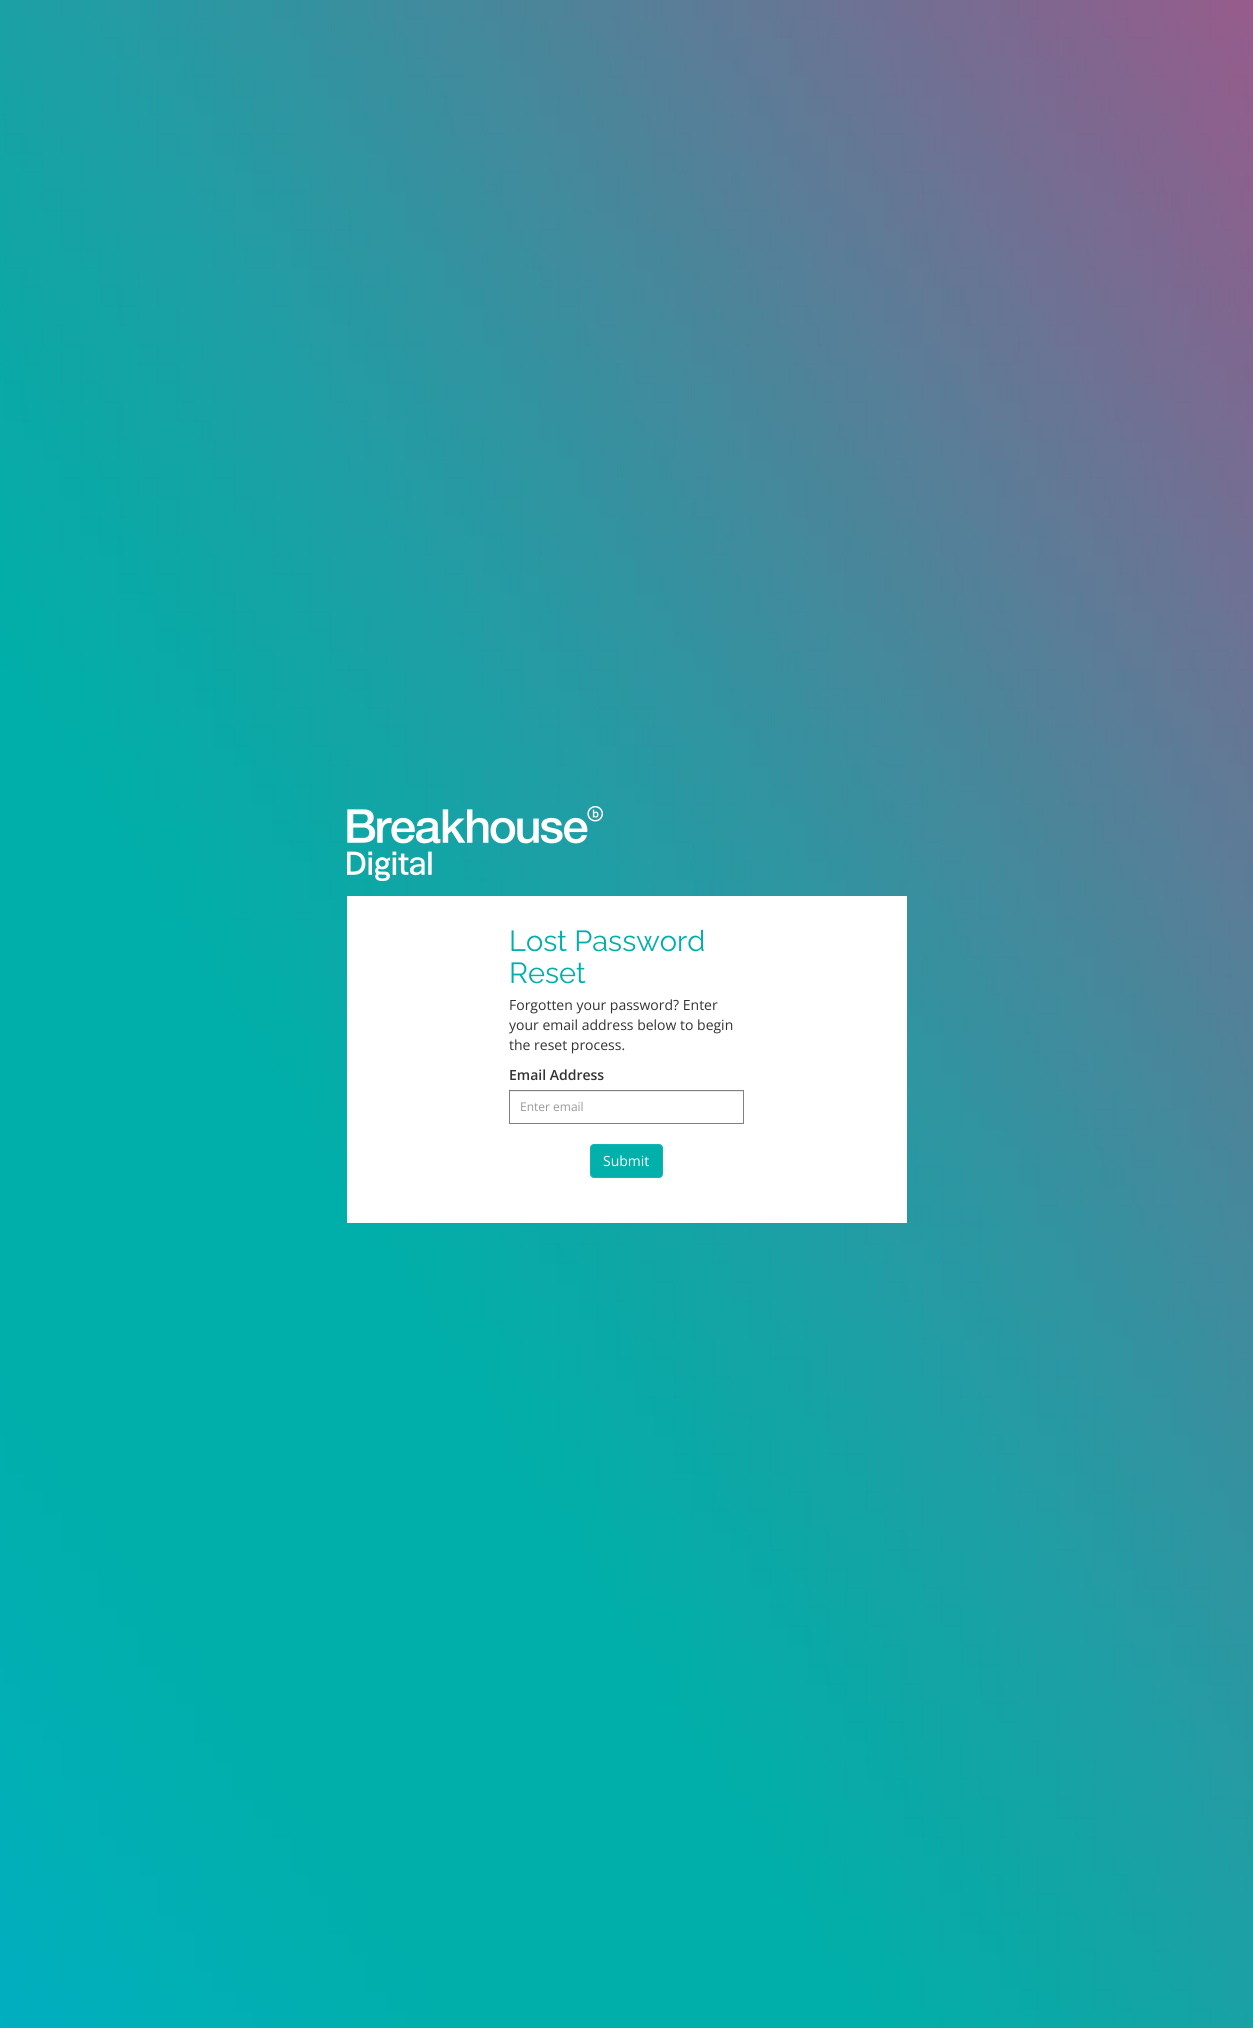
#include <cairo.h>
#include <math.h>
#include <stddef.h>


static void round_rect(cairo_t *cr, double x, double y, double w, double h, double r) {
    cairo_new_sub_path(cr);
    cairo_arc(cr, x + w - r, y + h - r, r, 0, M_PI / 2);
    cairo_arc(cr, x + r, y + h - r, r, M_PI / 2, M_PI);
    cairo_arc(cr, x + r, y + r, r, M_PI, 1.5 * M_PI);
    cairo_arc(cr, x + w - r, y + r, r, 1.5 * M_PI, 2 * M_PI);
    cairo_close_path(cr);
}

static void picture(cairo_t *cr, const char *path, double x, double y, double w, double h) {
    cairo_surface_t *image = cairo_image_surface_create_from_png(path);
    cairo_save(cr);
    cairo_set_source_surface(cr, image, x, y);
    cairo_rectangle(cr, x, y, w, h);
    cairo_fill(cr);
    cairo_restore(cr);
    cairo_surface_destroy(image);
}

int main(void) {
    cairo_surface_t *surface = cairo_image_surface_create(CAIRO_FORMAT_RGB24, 1253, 2028);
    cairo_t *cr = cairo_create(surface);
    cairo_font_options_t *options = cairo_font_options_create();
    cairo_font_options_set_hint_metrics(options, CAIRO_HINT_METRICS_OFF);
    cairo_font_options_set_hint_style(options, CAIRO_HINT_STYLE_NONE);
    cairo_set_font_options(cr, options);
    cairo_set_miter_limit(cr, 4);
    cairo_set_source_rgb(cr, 1, 1, 1);
    cairo_paint(cr);
    picture(cr, "img1.png", 0, 0, 1253, 2028);
    picture(cr, "img2.png", 347, 806, 256, 75);
    cairo_set_source_rgb(cr, 1, 1, 1);
    cairo_rectangle(cr, 347, 896, 560, 327);
    cairo_fill(cr);
    cairo_select_font_face(cr, "Raleway", CAIRO_FONT_SLANT_NORMAL, CAIRO_FONT_WEIGHT_NORMAL);
    cairo_set_font_size(cr, 29);
    cairo_set_source_rgb(cr, 0, 0.686, 0.667);
    cairo_move_to(cr, 509, 951);
    cairo_show_text(cr, "Lost Password");
    cairo_move_to(cr, 509, 983);
    cairo_show_text(cr, "Reset");
    cairo_select_font_face(cr, "Open Sans", CAIRO_FONT_SLANT_NORMAL, CAIRO_FONT_WEIGHT_NORMAL);
    cairo_set_font_size(cr, 14);
    cairo_set_source_rgb(cr, 0.2, 0.2, 0.2);
    cairo_move_to(cr, 509, 1010);
    cairo_show_text(cr, "Forgotten your password? Enter");
    cairo_move_to(cr, 509, 1030);
    cairo_show_text(cr, "your email address below to begin");
    cairo_move_to(cr, 509, 1050);
    cairo_show_text(cr, "the reset process.");
    cairo_select_font_face(cr, "Open Sans SemiBold", CAIRO_FONT_SLANT_NORMAL, CAIRO_FONT_WEIGHT_NORMAL);
    cairo_move_to(cr, 509, 1080);
    cairo_show_text(cr, "Email Address");
    cairo_set_source_rgb(cr, 0.925, 0.925, 0.925);
    cairo_rectangle(cr, 510, 1091, 233, 1);
    cairo_fill(cr);
    cairo_rectangle(cr, 509.5, 1090.5, 234, 33);
    cairo_set_source_rgb(cr, 0.502, 0.502, 0.502);
    cairo_set_line_width(cr, 1);
    cairo_stroke(cr);
    cairo_select_font_face(cr, "Open Sans", CAIRO_FONT_SLANT_NORMAL, CAIRO_FONT_WEIGHT_NORMAL);
    cairo_set_font_size(cr, 12);
    cairo_set_source_rgb(cr, 0.6, 0.6, 0.6);
    cairo_move_to(cr, 520, 1111);
    cairo_show_text(cr, "Enter email");
    cairo_set_source_rgb(cr, 0.008, 0.69, 0.671);
    round_rect(cr, 590.5, 1144.5, 72, 33, 3.5);
    cairo_fill_preserve(cr);
    cairo_set_source_rgb(cr, 0.075, 0.71, 0.69);
    cairo_stroke(cr);
    cairo_set_font_size(cr, 14);
    cairo_set_source_rgb(cr, 1, 1, 1);
    cairo_move_to(cr, 603, 1166);
    cairo_show_text(cr, "Submit");
    cairo_surface_write_to_png(surface, "page.png");
    cairo_font_options_destroy(options);
    cairo_destroy(cr);
    cairo_surface_destroy(surface);
    return 0;
}
